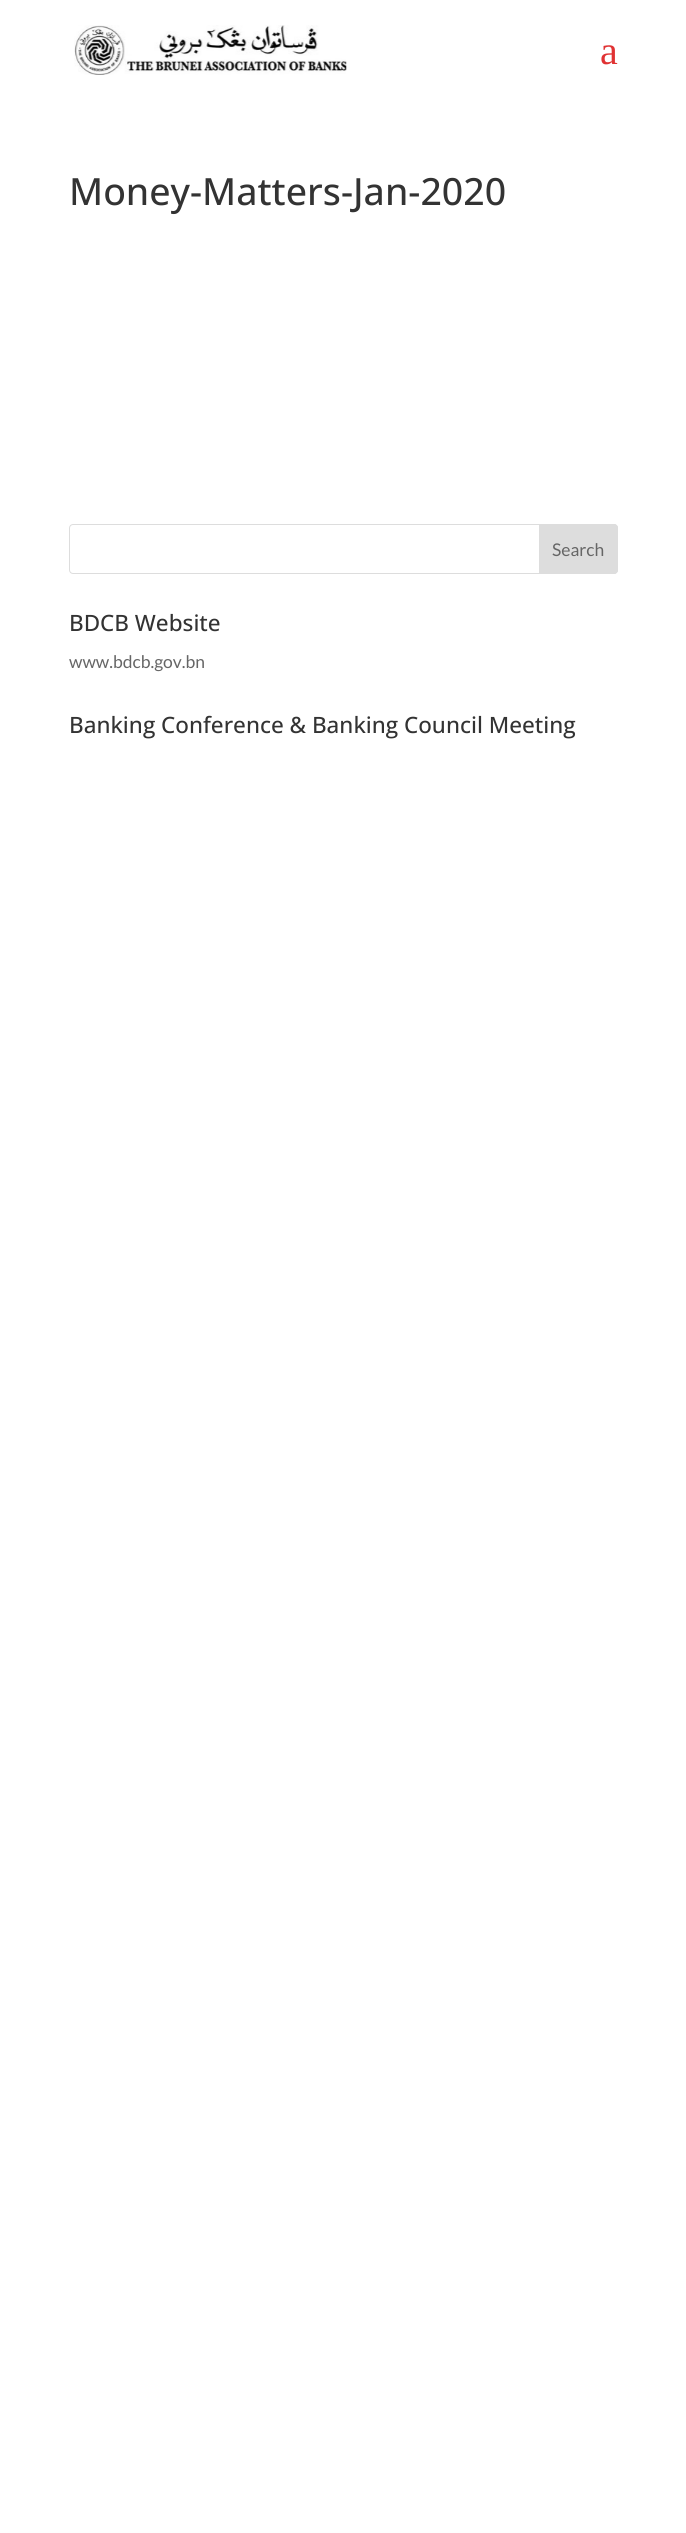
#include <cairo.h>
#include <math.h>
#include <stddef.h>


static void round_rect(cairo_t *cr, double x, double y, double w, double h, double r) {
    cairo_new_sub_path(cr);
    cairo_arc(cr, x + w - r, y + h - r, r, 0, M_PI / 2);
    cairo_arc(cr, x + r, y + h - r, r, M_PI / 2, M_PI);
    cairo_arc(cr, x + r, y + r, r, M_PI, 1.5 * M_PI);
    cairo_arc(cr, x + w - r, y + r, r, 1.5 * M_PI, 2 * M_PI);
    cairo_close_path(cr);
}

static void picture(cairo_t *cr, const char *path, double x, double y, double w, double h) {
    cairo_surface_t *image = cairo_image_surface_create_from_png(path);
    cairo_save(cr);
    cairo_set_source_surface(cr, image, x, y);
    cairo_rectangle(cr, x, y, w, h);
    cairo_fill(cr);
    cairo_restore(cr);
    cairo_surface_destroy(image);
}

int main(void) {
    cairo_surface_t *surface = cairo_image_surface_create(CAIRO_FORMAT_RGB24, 686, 2533);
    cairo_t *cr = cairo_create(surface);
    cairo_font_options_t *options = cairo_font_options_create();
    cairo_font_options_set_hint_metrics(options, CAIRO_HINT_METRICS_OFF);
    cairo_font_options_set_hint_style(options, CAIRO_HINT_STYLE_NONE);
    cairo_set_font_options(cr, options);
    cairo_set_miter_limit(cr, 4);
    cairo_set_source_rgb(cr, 1, 1, 1);
    cairo_paint(cr);
    picture(cr, "img1.png", 74, 25, 273, 50);
    cairo_select_font_face(cr, "Liberation Serif", CAIRO_FONT_SLANT_NORMAL, CAIRO_FONT_WEIGHT_NORMAL);
    cairo_set_font_size(cr, 40);
    cairo_set_source_rgb(cr, 0.878, 0.196, 0.2);
    cairo_move_to(cr, 600, 64);
    cairo_show_text(cr, "a");
    cairo_select_font_face(cr, "Open Sans Medium", CAIRO_FONT_SLANT_NORMAL, CAIRO_FONT_WEIGHT_NORMAL);
    cairo_set_font_size(cr, 37.5);
    cairo_set_source_rgb(cr, 0.2, 0.2, 0.2);
    cairo_move_to(cr, 69, 205);
    cairo_show_text(cr, "Money-Matters-Jan-2020");
    round_rect(cr, 69.5, 524.5, 548, 49, 3.5);
    cairo_set_source_rgb(cr, 0.867, 0.867, 0.867);
    cairo_set_line_width(cr, 1);
    cairo_stroke(cr);
    cairo_new_path(cr);
    cairo_move_to(cr, 539.5, 524.5);
    cairo_line_to(cr, 614, 524.5);
    cairo_curve_to(cr, 616, 524.5, 617.5, 526, 617.5, 528);
    cairo_line_to(cr, 617.5, 570);
    cairo_curve_to(cr, 617.5, 572, 616, 573.5, 614, 573.5);
    cairo_line_to(cr, 539.5, 573.5);
    cairo_close_path(cr);
    cairo_fill_preserve(cr);
    cairo_stroke(cr);
    cairo_select_font_face(cr, "Lato", CAIRO_FONT_SLANT_NORMAL, CAIRO_FONT_WEIGHT_NORMAL);
    cairo_set_font_size(cr, 17.5);
    cairo_set_source_rgb(cr, 0.4, 0.4, 0.4);
    cairo_move_to(cr, 552, 556);
    cairo_show_text(cr, "Search");
    cairo_select_font_face(cr, "Open Sans Medium", CAIRO_FONT_SLANT_NORMAL, CAIRO_FONT_WEIGHT_NORMAL);
    cairo_set_font_size(cr, 22.5);
    cairo_set_source_rgb(cr, 0.2, 0.2, 0.2);
    cairo_move_to(cr, 69, 631);
    cairo_show_text(cr, "BDCB Website");
    cairo_select_font_face(cr, "Lato", CAIRO_FONT_SLANT_NORMAL, CAIRO_FONT_WEIGHT_NORMAL);
    cairo_set_font_size(cr, 17.5);
    cairo_set_source_rgb(cr, 0.4, 0.4, 0.4);
    cairo_move_to(cr, 69, 668);
    cairo_show_text(cr, "www.bdcb.gov.bn");
    cairo_select_font_face(cr, "Open Sans Medium", CAIRO_FONT_SLANT_NORMAL, CAIRO_FONT_WEIGHT_NORMAL);
    cairo_set_font_size(cr, 22.5);
    cairo_set_source_rgb(cr, 0.2, 0.2, 0.2);
    cairo_move_to(cr, 69, 733);
    cairo_show_text(cr, "Banking Conference & Banking Council Meeting");
    cairo_surface_write_to_png(surface, "page.png");
    cairo_font_options_destroy(options);
    cairo_destroy(cr);
    cairo_surface_destroy(surface);
    return 0;
}
